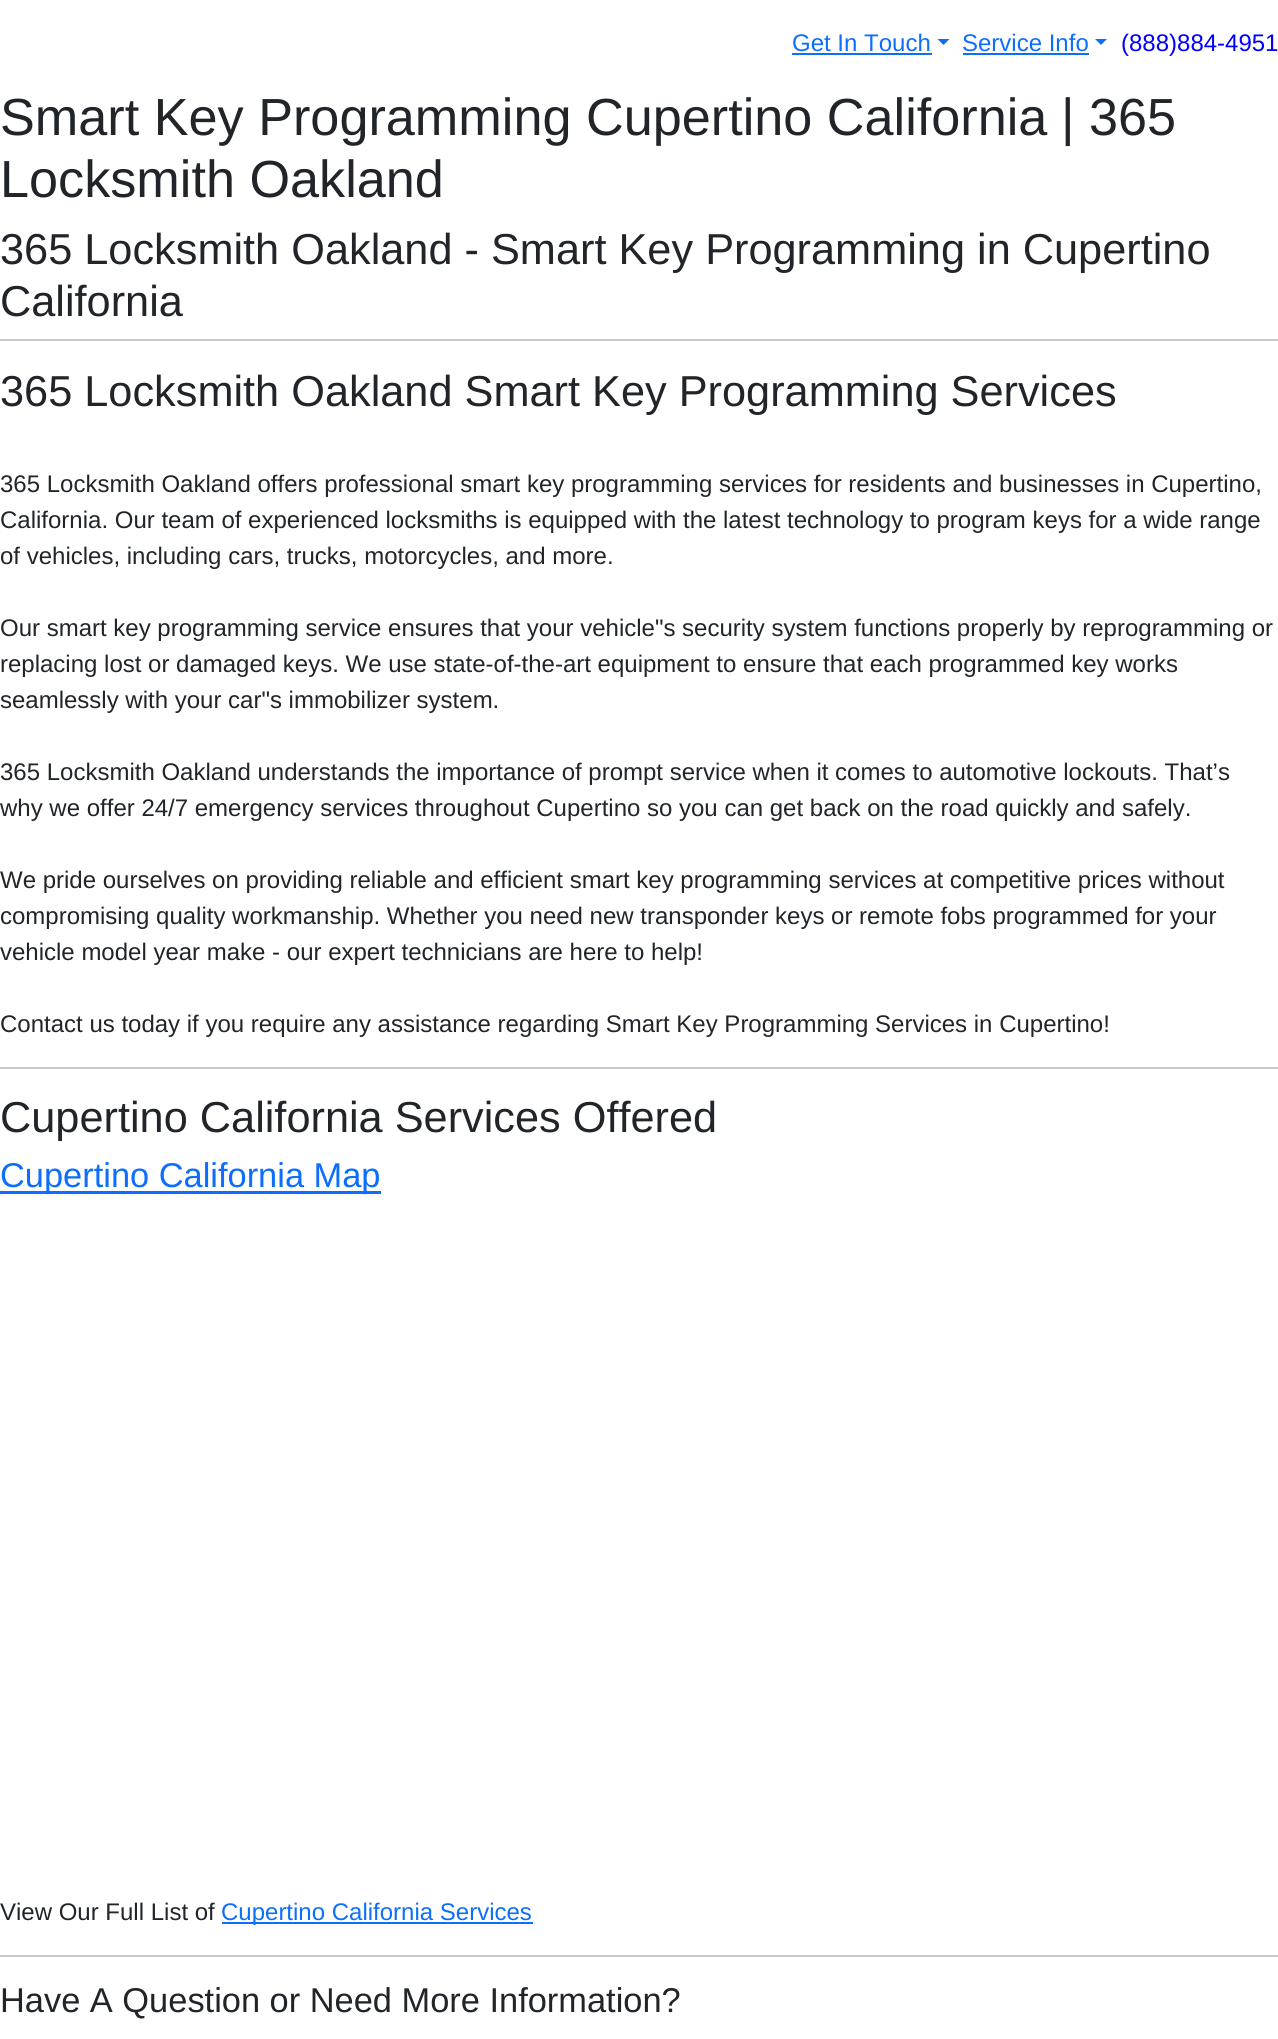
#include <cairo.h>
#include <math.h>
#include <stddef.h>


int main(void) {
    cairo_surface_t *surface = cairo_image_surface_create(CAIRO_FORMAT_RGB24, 1278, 2039);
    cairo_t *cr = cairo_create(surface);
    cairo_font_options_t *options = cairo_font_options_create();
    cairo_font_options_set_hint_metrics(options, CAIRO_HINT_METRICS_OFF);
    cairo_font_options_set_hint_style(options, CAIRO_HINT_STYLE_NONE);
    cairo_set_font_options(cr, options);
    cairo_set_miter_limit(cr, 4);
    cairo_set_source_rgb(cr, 1, 1, 1);
    cairo_paint(cr);
    cairo_select_font_face(cr, "Liberation Sans", CAIRO_FONT_SLANT_NORMAL, CAIRO_FONT_WEIGHT_NORMAL);
    cairo_set_font_size(cr, 24);
    cairo_set_source_rgb(cr, 0.051, 0.431, 0.992);
    cairo_move_to(cr, 792, 51);
    cairo_show_text(cr, "Get In Touch");
    cairo_rectangle(cr, 792, 53, 140, 2);
    cairo_fill(cr);
    cairo_new_path(cr);
    cairo_move_to(cr, 937.5, 39);
    cairo_line_to(cr, 949.5, 39);
    cairo_line_to(cr, 943.5, 45);
    cairo_close_path(cr);
    cairo_fill(cr);
    cairo_move_to(cr, 962, 51);
    cairo_show_text(cr, "Service Info");
    cairo_rectangle(cr, 963, 53, 126, 2);
    cairo_fill(cr);
    cairo_new_path(cr);
    cairo_move_to(cr, 1095, 39);
    cairo_line_to(cr, 1107, 39);
    cairo_line_to(cr, 1101, 45);
    cairo_close_path(cr);
    cairo_fill(cr);
    cairo_set_source_rgb(cr, 0, 0, 1);
    cairo_move_to(cr, 1121, 51);
    cairo_show_text(cr, "(888)884-4951");
    cairo_set_font_size(cr, 52.2);
    cairo_set_source_rgb(cr, 0.129, 0.145, 0.161);
    cairo_move_to(cr, 0, 135);
    cairo_show_text(cr, "Smart Key Programming Cupertino California");
    cairo_move_to(cr, 1061, 135);
    cairo_show_text(cr, "| 365");
    cairo_move_to(cr, 0, 197);
    cairo_show_text(cr, "Locksmith Oakland");
    cairo_set_font_size(cr, 43.3);
    cairo_move_to(cr, 0, 264);
    cairo_show_text(cr, "365 Locksmith Oakland - Smart Key Programming in Cupertino");
    cairo_move_to(cr, 0, 316);
    cairo_show_text(cr, "California");
    cairo_set_source_rgb(cr, 0.784, 0.788, 0.792);
    cairo_rectangle(cr, 0, 339, 1278, 2);
    cairo_fill(cr);
    cairo_set_source_rgb(cr, 0.129, 0.145, 0.161);
    cairo_move_to(cr, 0, 406);
    cairo_show_text(cr, "365 Locksmith Oakland Smart Key Programming Services");
    cairo_set_font_size(cr, 24);
    cairo_move_to(cr, 0, 492);
    cairo_show_text(cr, "365 Locksmith Oakland offers professional smart key programming services for residents and businesses in Cupertino,");
    cairo_move_to(cr, 0, 528);
    cairo_show_text(cr, "California. Our team of experienced locksmiths is equipped with the latest technology to program keys for a wide range");
    cairo_move_to(cr, 0, 564);
    cairo_show_text(cr, "of vehicles, including cars, trucks, motorcycles, and more.");
    cairo_move_to(cr, 0, 636);
    cairo_show_text(cr, "Our smart key programming service ensures that your vehicle\"s security system functions properly by reprogramming or");
    cairo_move_to(cr, 0, 672);
    cairo_show_text(cr, "replacing lost or damaged keys. We use state-of-the-art equipment to ensure that each programmed key works");
    cairo_move_to(cr, 0, 708);
    cairo_show_text(cr, "seamlessly with your car\"s immobilizer system.");
    cairo_move_to(cr, 0, 780);
    cairo_show_text(cr, "365 Locksmith Oakland understands the importance of prompt service when it comes to automotive lockouts. That’s");
    cairo_move_to(cr, 0, 816);
    cairo_show_text(cr, "why we offer 24/7 emergency services throughout Cupertino so you can get back on the road quickly and safely.");
    cairo_move_to(cr, 0, 888);
    cairo_show_text(cr, "We pride ourselves on providing reliable and efficient smart key programming services at competitive prices without");
    cairo_move_to(cr, 0, 924);
    cairo_show_text(cr, "compromising quality workmanship. Whether you need new transponder keys or remote fobs programmed for your");
    cairo_move_to(cr, 0, 960);
    cairo_show_text(cr, "vehicle model year make - our expert technicians are here to help!");
    cairo_move_to(cr, 0, 1032);
    cairo_show_text(cr, "Contact us today if you require any assistance regarding Smart Key Programming Services in Cupertino!");
    cairo_set_source_rgb(cr, 0.784, 0.788, 0.792);
    cairo_rectangle(cr, 0, 1067, 1278, 2);
    cairo_fill(cr);
    cairo_set_font_size(cr, 43.3);
    cairo_set_source_rgb(cr, 0.129, 0.145, 0.161);
    cairo_move_to(cr, 0, 1132);
    cairo_show_text(cr, "Cupertino California Services Offered");
    cairo_set_source_rgb(cr, 0.051, 0.431, 0.992);
    cairo_rectangle(cr, 0, 1191, 381, 3);
    cairo_fill(cr);
    cairo_set_font_size(cr, 34.4);
    cairo_move_to(cr, 0, 1187);
    cairo_show_text(cr, "Cupertino California Map");
    cairo_set_font_size(cr, 24);
    cairo_set_source_rgb(cr, 0.129, 0.145, 0.161);
    cairo_move_to(cr, 0, 1920);
    cairo_show_text(cr, "View Our Full List of");
    cairo_set_source_rgb(cr, 0.051, 0.431, 0.992);
    cairo_rectangle(cr, 222, 1922, 311, 2);
    cairo_fill(cr);
    cairo_move_to(cr, 221, 1920);
    cairo_show_text(cr, "Cupertino California Services");
    cairo_set_source_rgb(cr, 0.784, 0.788, 0.792);
    cairo_rectangle(cr, 0, 1955, 1278, 2);
    cairo_fill(cr);
    cairo_set_font_size(cr, 34.4);
    cairo_set_source_rgb(cr, 0.129, 0.145, 0.161);
    cairo_move_to(cr, 0, 2012);
    cairo_show_text(cr, "Have A Question or Need More Information?");
    cairo_surface_write_to_png(surface, "page.png");
    cairo_font_options_destroy(options);
    cairo_destroy(cr);
    cairo_surface_destroy(surface);
    return 0;
}
